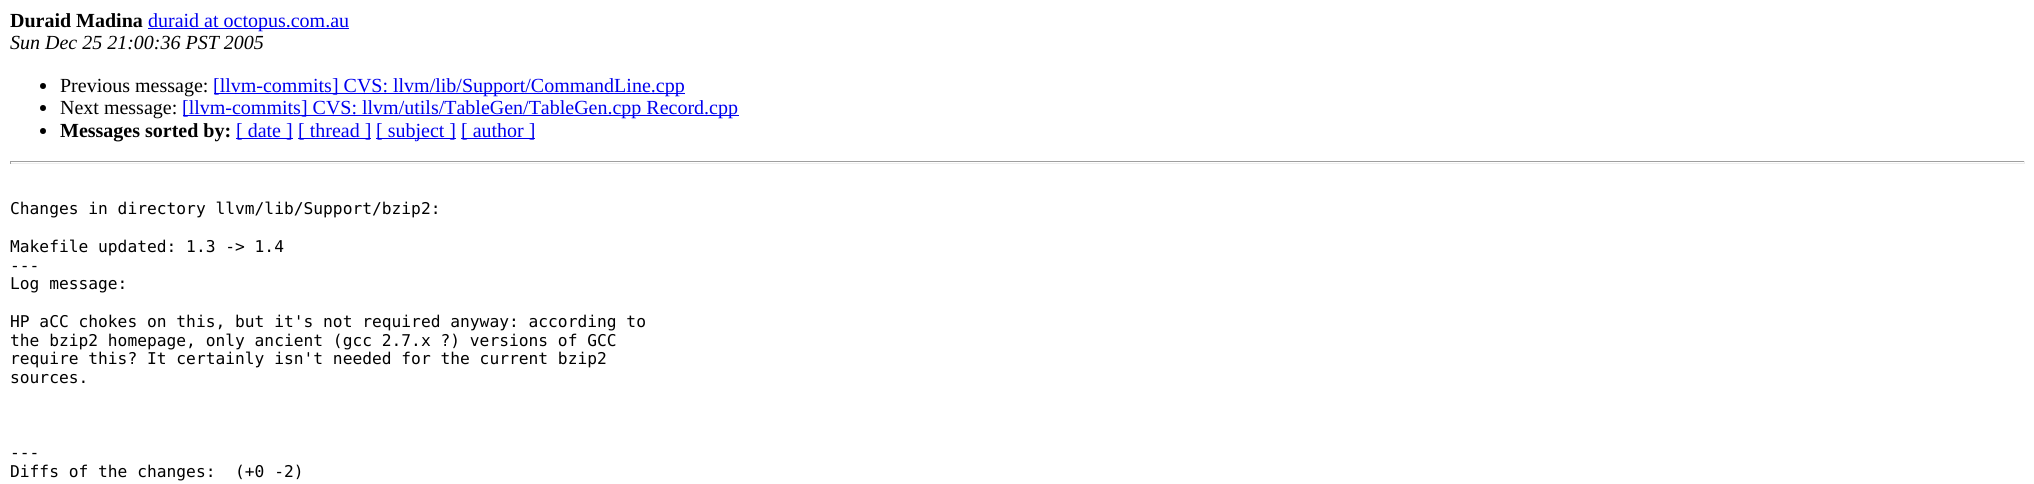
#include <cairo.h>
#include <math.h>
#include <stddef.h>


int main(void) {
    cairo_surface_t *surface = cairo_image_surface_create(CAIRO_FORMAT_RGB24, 2034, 484);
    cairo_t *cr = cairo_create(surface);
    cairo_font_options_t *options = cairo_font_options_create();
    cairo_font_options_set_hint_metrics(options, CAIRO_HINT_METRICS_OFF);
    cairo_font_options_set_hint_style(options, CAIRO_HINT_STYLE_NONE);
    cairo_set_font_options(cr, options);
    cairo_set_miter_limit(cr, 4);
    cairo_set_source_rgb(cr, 1, 1, 1);
    cairo_paint(cr);
    cairo_select_font_face(cr, "Liberation Serif", CAIRO_FONT_SLANT_NORMAL, CAIRO_FONT_WEIGHT_BOLD);
    cairo_set_font_size(cr, 20);
    cairo_set_source_rgb(cr, 0, 0, 0);
    cairo_move_to(cr, 10, 27);
    cairo_show_text(cr, "Duraid Madina");
    cairo_set_source_rgb(cr, 0, 0, 0.933);
    cairo_rectangle(cr, 148, 28, 201, 1);
    cairo_fill(cr);
    cairo_select_font_face(cr, "Liberation Serif", CAIRO_FONT_SLANT_NORMAL, CAIRO_FONT_WEIGHT_NORMAL);
    cairo_move_to(cr, 148, 27);
    cairo_show_text(cr, "duraid at octopus.com.au");
    cairo_select_font_face(cr, "Liberation Serif", CAIRO_FONT_SLANT_ITALIC, CAIRO_FONT_WEIGHT_NORMAL);
    cairo_set_source_rgb(cr, 0, 0, 0);
    cairo_move_to(cr, 10, 49);
    cairo_show_text(cr, "Sun Dec 25 21:00:36 PST 2005");
    cairo_new_path(cr);
    cairo_arc(cr, 43, 86, 3, 0, 2 * M_PI);
    cairo_fill(cr);
    cairo_select_font_face(cr, "Liberation Serif", CAIRO_FONT_SLANT_NORMAL, CAIRO_FONT_WEIGHT_NORMAL);
    cairo_move_to(cr, 60, 92);
    cairo_show_text(cr, "Previous message:");
    cairo_set_source_rgb(cr, 0, 0, 0.933);
    cairo_rectangle(cr, 214, 93, 471, 1);
    cairo_fill(cr);
    cairo_move_to(cr, 213, 92);
    cairo_show_text(cr, "[llvm-commits] CVS: llvm/lib/Support/CommandLine.cpp");
    cairo_set_source_rgb(cr, 0, 0, 0);
    cairo_new_path(cr);
    cairo_arc(cr, 43, 108, 3, 0, 2 * M_PI);
    cairo_fill(cr);
    cairo_move_to(cr, 60, 114);
    cairo_show_text(cr, "Next message:");
    cairo_set_source_rgb(cr, 0, 0, 0.933);
    cairo_rectangle(cr, 183, 115, 556, 1);
    cairo_fill(cr);
    cairo_move_to(cr, 182, 114);
    cairo_show_text(cr, "[llvm-commits] CVS: llvm/utils/TableGen/TableGen.cpp Record.cpp");
    cairo_set_source_rgb(cr, 0, 0, 0);
    cairo_new_path(cr);
    cairo_arc(cr, 43, 131, 3, 0, 2 * M_PI);
    cairo_fill(cr);
    cairo_select_font_face(cr, "Liberation Serif", CAIRO_FONT_SLANT_NORMAL, CAIRO_FONT_WEIGHT_BOLD);
    cairo_move_to(cr, 60, 137);
    cairo_show_text(cr, "Messages sorted by:");
    cairo_set_source_rgb(cr, 0, 0, 0.933);
    cairo_rectangle(cr, 236, 138, 57, 1);
    cairo_fill(cr);
    cairo_select_font_face(cr, "Liberation Serif", CAIRO_FONT_SLANT_NORMAL, CAIRO_FONT_WEIGHT_NORMAL);
    cairo_move_to(cr, 236, 137);
    cairo_show_text(cr, "[ date ]");
    cairo_rectangle(cr, 298, 138, 73, 1);
    cairo_fill(cr);
    cairo_move_to(cr, 298, 137);
    cairo_show_text(cr, "[ thread ]");
    cairo_rectangle(cr, 376, 138, 80, 1);
    cairo_fill(cr);
    cairo_move_to(cr, 376, 137);
    cairo_show_text(cr, "[ subject ]");
    cairo_rectangle(cr, 461, 138, 74, 1);
    cairo_fill(cr);
    cairo_move_to(cr, 461, 137);
    cairo_show_text(cr, "[ author ]");
    cairo_set_source_rgb(cr, 0.624, 0.624, 0.624);
    cairo_rectangle(cr, 10, 161, 2015, 1);
    cairo_fill(cr);
    cairo_set_source_rgb(cr, 0.933, 0.933, 0.933);
    cairo_rectangle(cr, 2024, 161, 1, 3);
    cairo_fill(cr);
    cairo_rectangle(cr, 10, 163, 2015, 1);
    cairo_fill(cr);
    cairo_set_source_rgb(cr, 0.624, 0.624, 0.624);
    cairo_rectangle(cr, 10, 161, 1, 3);
    cairo_fill(cr);
    cairo_select_font_face(cr, "DejaVu Sans Mono", CAIRO_FONT_SLANT_NORMAL, CAIRO_FONT_WEIGHT_NORMAL);
    cairo_set_font_size(cr, 16.25);
    cairo_set_source_rgb(cr, 0, 0, 0);
    cairo_move_to(cr, 10, 214);
    cairo_show_text(cr, "Changes in directory llvm/lib/Support/bzip2:");
    cairo_move_to(cr, 10, 252);
    cairo_show_text(cr, "Makefile updated: 1.3 -> 1.4");
    cairo_move_to(cr, 10, 271);
    cairo_show_text(cr, "---");
    cairo_move_to(cr, 10, 289);
    cairo_show_text(cr, "Log message:");
    cairo_move_to(cr, 10, 327);
    cairo_show_text(cr, "HP aCC chokes on this, but it's not required anyway: according to");
    cairo_move_to(cr, 10, 346);
    cairo_show_text(cr, "the bzip2 homepage, only ancient (gcc 2.7.x ?) versions of GCC");
    cairo_move_to(cr, 10, 364);
    cairo_show_text(cr, "require this? It certainly isn't needed for the current bzip2");
    cairo_move_to(cr, 10, 383);
    cairo_show_text(cr, "sources.");
    cairo_move_to(cr, 10, 458);
    cairo_show_text(cr, "---");
    cairo_move_to(cr, 10, 477);
    cairo_show_text(cr, "Diffs of the changes:  (+0 -2)");
    cairo_surface_write_to_png(surface, "page.png");
    cairo_font_options_destroy(options);
    cairo_destroy(cr);
    cairo_surface_destroy(surface);
    return 0;
}
